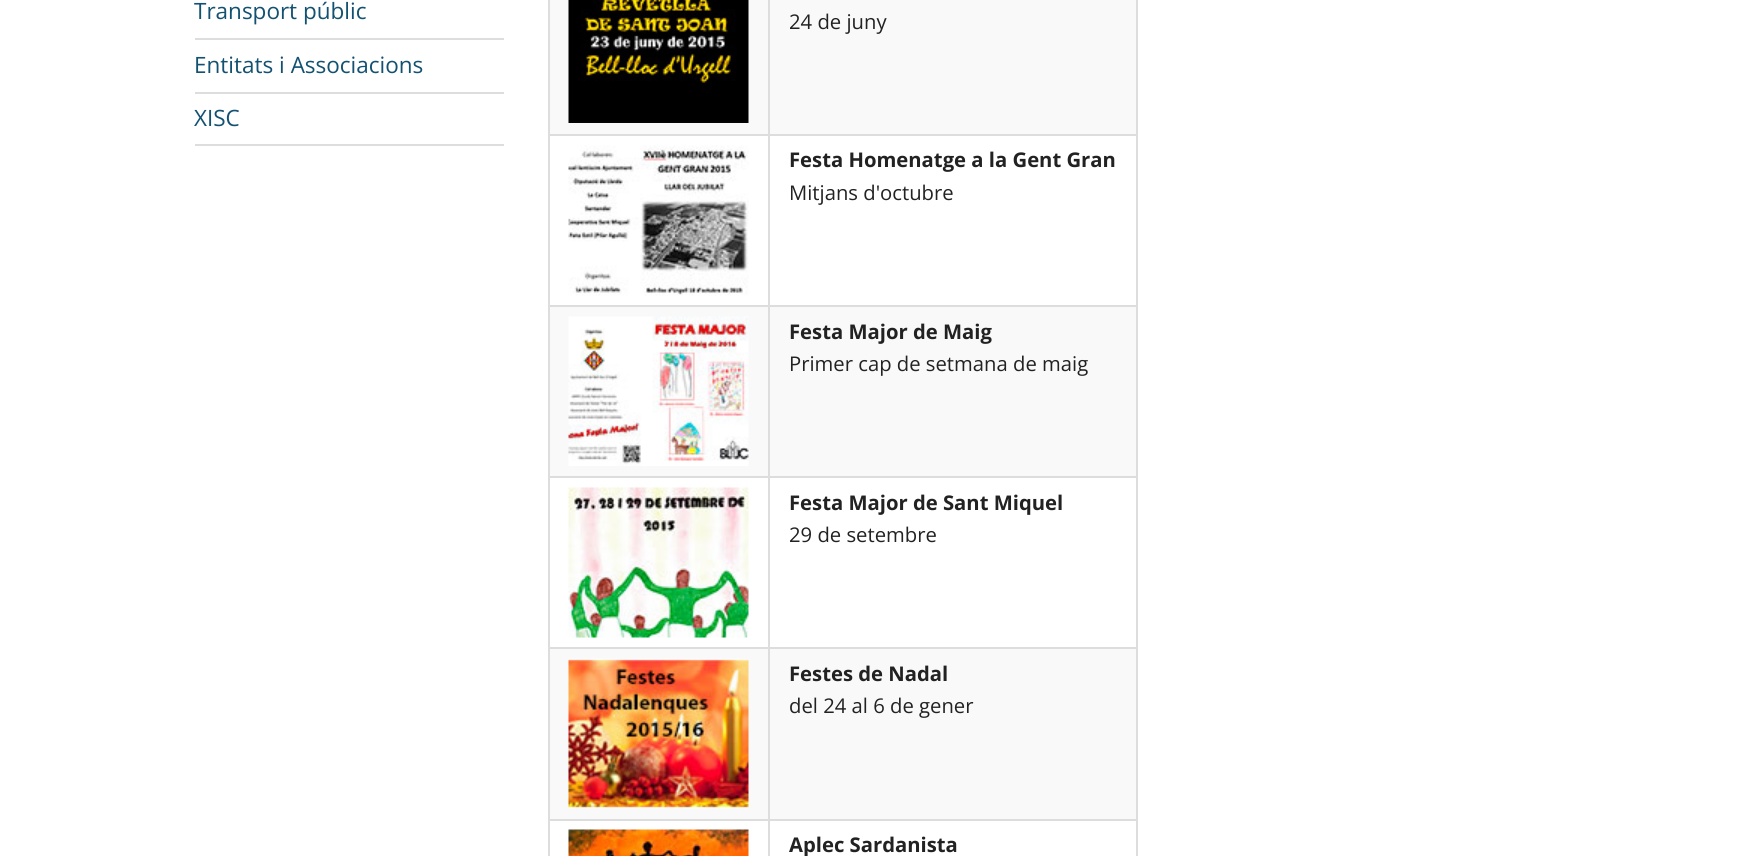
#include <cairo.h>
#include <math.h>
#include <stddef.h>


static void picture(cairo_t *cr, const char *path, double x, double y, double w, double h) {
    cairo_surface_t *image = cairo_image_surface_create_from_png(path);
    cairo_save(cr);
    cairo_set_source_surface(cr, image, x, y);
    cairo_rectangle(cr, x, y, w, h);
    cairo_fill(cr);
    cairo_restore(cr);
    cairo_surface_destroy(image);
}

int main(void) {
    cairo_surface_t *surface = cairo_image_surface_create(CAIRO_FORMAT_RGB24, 1756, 856);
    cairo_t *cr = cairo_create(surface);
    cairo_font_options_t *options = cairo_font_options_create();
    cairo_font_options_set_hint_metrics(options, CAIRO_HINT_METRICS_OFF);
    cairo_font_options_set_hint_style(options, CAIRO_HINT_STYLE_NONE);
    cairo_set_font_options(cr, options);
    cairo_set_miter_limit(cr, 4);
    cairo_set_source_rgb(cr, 1, 1, 1);
    cairo_paint(cr);
    cairo_set_source_rgb(cr, 0.867, 0.867, 0.867);
    cairo_rectangle(cr, 195, 38, 309, 2);
    cairo_fill(cr);
    cairo_select_font_face(cr, "Open Sans", CAIRO_FONT_SLANT_NORMAL, CAIRO_FONT_WEIGHT_NORMAL);
    cairo_set_font_size(cr, 22.5);
    cairo_set_source_rgb(cr, 0.075, 0.318, 0.443);
    cairo_move_to(cr, 194, 19);
    cairo_show_text(cr, "Transport públic");
    cairo_set_source_rgb(cr, 0.867, 0.867, 0.867);
    cairo_rectangle(cr, 195, 92, 309, 2);
    cairo_fill(cr);
    cairo_set_source_rgb(cr, 0.075, 0.318, 0.443);
    cairo_move_to(cr, 194, 73);
    cairo_show_text(cr, "Entitats i Associacions");
    cairo_set_source_rgb(cr, 0.867, 0.867, 0.867);
    cairo_rectangle(cr, 195, 144, 309, 2);
    cairo_fill(cr);
    cairo_set_source_rgb(cr, 0.075, 0.318, 0.443);
    cairo_move_to(cr, 194, 126);
    cairo_show_text(cr, "XISC");
    cairo_set_source_rgb(cr, 0.867, 0.867, 0.867);
    cairo_rectangle(cr, 1136, 0, 2, 856);
    cairo_fill(cr);
    cairo_rectangle(cr, 548, 0, 2, 856);
    cairo_fill(cr);
    cairo_set_source_rgb(cr, 0.976, 0.976, 0.976);
    cairo_rectangle(cr, 550, 0, 586, 134);
    cairo_fill(cr);
    picture(cr, "img1.png", 568, 0, 181, 123);
    cairo_set_source_rgb(cr, 0.867, 0.867, 0.867);
    cairo_rectangle(cr, 768, 134, 369, 2);
    cairo_fill(cr);
    cairo_rectangle(cr, 768, 305, 369, 2);
    cairo_fill(cr);
    cairo_set_source_rgb(cr, 0.976, 0.976, 0.976);
    cairo_rectangle(cr, 550, 307, 586, 169);
    cairo_fill(cr);
    cairo_set_source_rgb(cr, 0.867, 0.867, 0.867);
    cairo_rectangle(cr, 768, 476, 369, 2);
    cairo_fill(cr);
    cairo_rectangle(cr, 768, 647, 369, 2);
    cairo_fill(cr);
    cairo_set_source_rgb(cr, 0.976, 0.976, 0.976);
    cairo_rectangle(cr, 550, 649, 586, 170);
    cairo_fill(cr);
    cairo_set_source_rgb(cr, 0.867, 0.867, 0.867);
    cairo_rectangle(cr, 768, 819, 369, 2);
    cairo_fill(cr);
    cairo_rectangle(cr, 768, 819, 2, 37);
    cairo_fill(cr);
    cairo_rectangle(cr, 548, 819, 222, 2);
    cairo_fill(cr);
    cairo_rectangle(cr, 768, 647, 2, 174);
    cairo_fill(cr);
    cairo_rectangle(cr, 548, 647, 222, 2);
    cairo_fill(cr);
    cairo_rectangle(cr, 768, 476, 2, 172);
    cairo_fill(cr);
    cairo_rectangle(cr, 548, 476, 222, 2);
    cairo_fill(cr);
    cairo_rectangle(cr, 768, 305, 2, 172);
    cairo_fill(cr);
    cairo_rectangle(cr, 548, 305, 222, 2);
    cairo_fill(cr);
    cairo_rectangle(cr, 768, 134, 2, 172);
    cairo_fill(cr);
    cairo_rectangle(cr, 548, 134, 222, 2);
    cairo_fill(cr);
    cairo_rectangle(cr, 768, 0, 2, 135);
    cairo_fill(cr);
    cairo_set_font_size(cr, 20.25);
    cairo_set_source_rgb(cr, 0.133, 0.133, 0.133);
    cairo_move_to(cr, 789, 29);
    cairo_show_text(cr, "24 de juny");
    picture(cr, "img2.png", 568, 145, 181, 151);
    cairo_select_font_face(cr, "Open Sans", CAIRO_FONT_SLANT_NORMAL, CAIRO_FONT_WEIGHT_BOLD);
    cairo_move_to(cr, 789, 167);
    cairo_show_text(cr, "Festa Homenatge a la Gent Gran");
    cairo_select_font_face(cr, "Open Sans", CAIRO_FONT_SLANT_NORMAL, CAIRO_FONT_WEIGHT_NORMAL);
    cairo_move_to(cr, 789, 200);
    cairo_show_text(cr, "Mitjans d'octubre");
    picture(cr, "img3.png", 568, 316, 181, 150);
    cairo_select_font_face(cr, "Open Sans", CAIRO_FONT_SLANT_NORMAL, CAIRO_FONT_WEIGHT_BOLD);
    cairo_move_to(cr, 789, 339);
    cairo_show_text(cr, "Festa Major de Maig");
    cairo_select_font_face(cr, "Open Sans", CAIRO_FONT_SLANT_NORMAL, CAIRO_FONT_WEIGHT_NORMAL);
    cairo_move_to(cr, 789, 371);
    cairo_show_text(cr, "Primer cap de setmana de maig");
    picture(cr, "img4.png", 568, 487, 181, 151);
    cairo_select_font_face(cr, "Open Sans", CAIRO_FONT_SLANT_NORMAL, CAIRO_FONT_WEIGHT_BOLD);
    cairo_move_to(cr, 789, 510);
    cairo_show_text(cr, "Festa Major de Sant Miquel");
    cairo_select_font_face(cr, "Open Sans", CAIRO_FONT_SLANT_NORMAL, CAIRO_FONT_WEIGHT_NORMAL);
    cairo_move_to(cr, 789, 542);
    cairo_show_text(cr, "29 de setembre");
    picture(cr, "img5.png", 568, 658, 181, 151);
    cairo_select_font_face(cr, "Open Sans", CAIRO_FONT_SLANT_NORMAL, CAIRO_FONT_WEIGHT_BOLD);
    cairo_move_to(cr, 789, 681);
    cairo_show_text(cr, "Festes de Nadal");
    cairo_select_font_face(cr, "Open Sans", CAIRO_FONT_SLANT_NORMAL, CAIRO_FONT_WEIGHT_NORMAL);
    cairo_move_to(cr, 789, 713);
    cairo_show_text(cr, "del 24 al 6 de gener");
    picture(cr, "img6.png", 568, 829, 181, 27);
    cairo_select_font_face(cr, "Open Sans", CAIRO_FONT_SLANT_NORMAL, CAIRO_FONT_WEIGHT_BOLD);
    cairo_move_to(cr, 789, 852);
    cairo_show_text(cr, "Aplec Sardanista");
    cairo_surface_write_to_png(surface, "page.png");
    cairo_font_options_destroy(options);
    cairo_destroy(cr);
    cairo_surface_destroy(surface);
    return 0;
}
